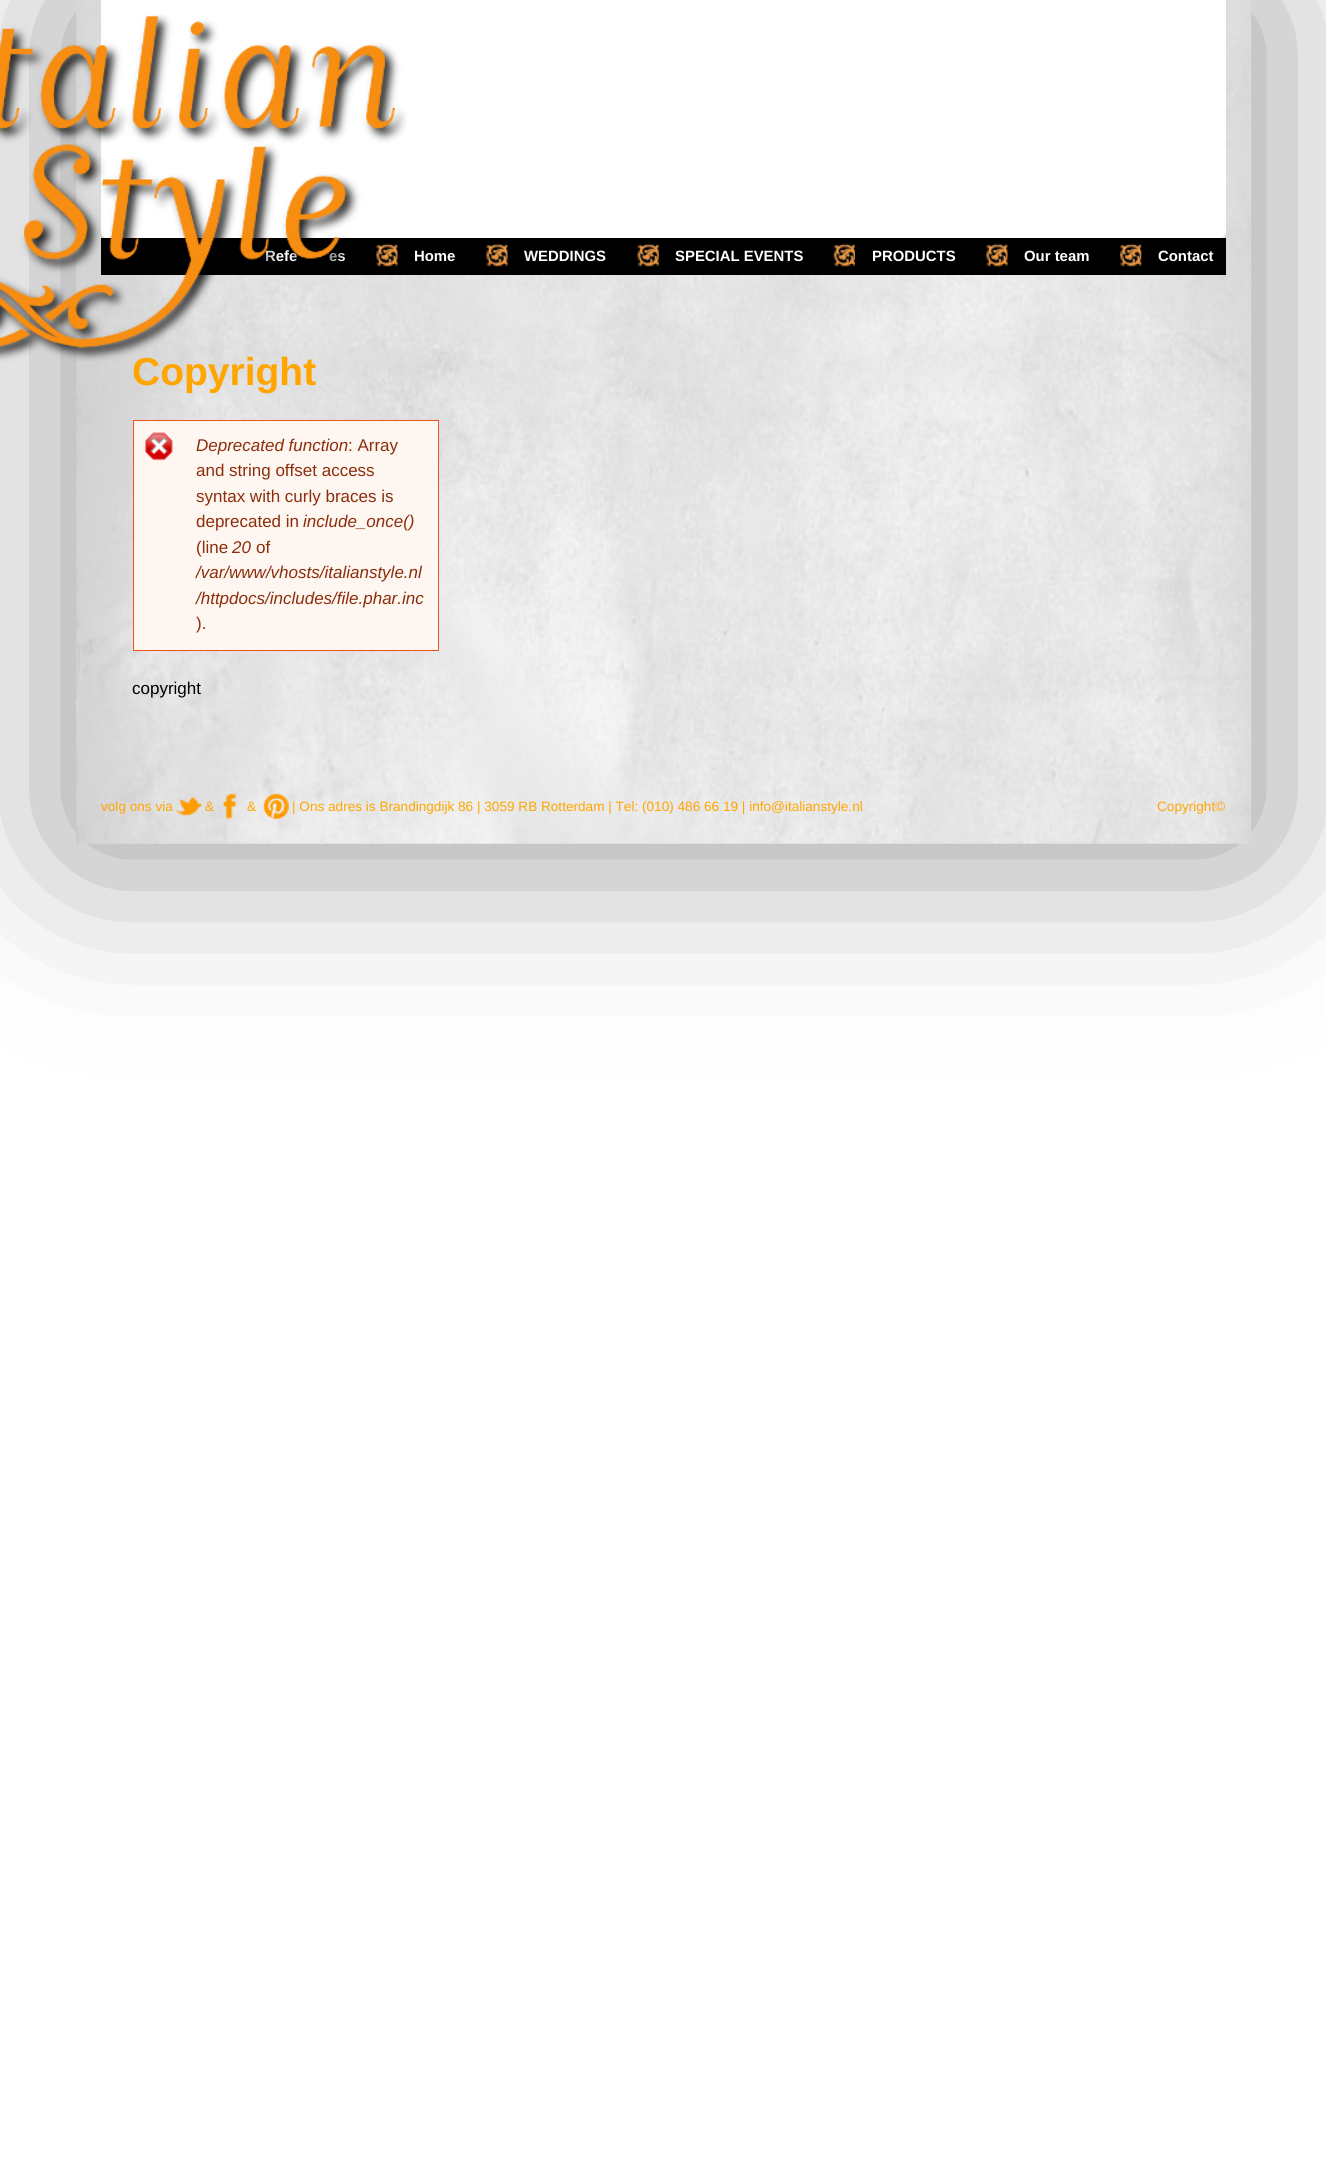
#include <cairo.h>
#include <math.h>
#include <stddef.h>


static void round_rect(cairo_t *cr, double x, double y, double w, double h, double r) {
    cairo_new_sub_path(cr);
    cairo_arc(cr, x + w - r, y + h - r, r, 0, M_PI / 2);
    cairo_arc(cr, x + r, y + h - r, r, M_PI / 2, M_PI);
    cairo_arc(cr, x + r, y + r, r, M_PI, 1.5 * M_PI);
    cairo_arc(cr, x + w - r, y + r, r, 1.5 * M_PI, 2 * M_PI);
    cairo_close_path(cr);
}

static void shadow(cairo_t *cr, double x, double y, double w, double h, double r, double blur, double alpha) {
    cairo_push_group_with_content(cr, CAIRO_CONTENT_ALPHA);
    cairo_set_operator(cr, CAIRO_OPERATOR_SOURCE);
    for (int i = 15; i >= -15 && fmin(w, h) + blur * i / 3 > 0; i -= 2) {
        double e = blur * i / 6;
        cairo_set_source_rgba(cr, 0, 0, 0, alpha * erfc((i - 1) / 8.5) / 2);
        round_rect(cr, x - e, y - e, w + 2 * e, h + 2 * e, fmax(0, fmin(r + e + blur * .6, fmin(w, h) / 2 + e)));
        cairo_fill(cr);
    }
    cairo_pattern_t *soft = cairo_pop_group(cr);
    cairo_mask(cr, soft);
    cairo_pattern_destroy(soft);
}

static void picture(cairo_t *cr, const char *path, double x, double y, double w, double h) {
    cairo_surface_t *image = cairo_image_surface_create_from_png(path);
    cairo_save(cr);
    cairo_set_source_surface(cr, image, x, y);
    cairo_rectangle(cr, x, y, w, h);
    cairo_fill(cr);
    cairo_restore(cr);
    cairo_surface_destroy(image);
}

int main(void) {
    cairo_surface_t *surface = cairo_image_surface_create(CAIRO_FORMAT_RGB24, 1326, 2182);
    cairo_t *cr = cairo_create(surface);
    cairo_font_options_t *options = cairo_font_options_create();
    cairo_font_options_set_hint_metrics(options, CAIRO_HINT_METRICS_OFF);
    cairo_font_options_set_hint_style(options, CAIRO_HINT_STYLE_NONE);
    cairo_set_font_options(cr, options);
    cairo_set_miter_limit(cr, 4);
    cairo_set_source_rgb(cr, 1, 1, 1);
    cairo_paint(cr);
    cairo_set_source_rgb(cr, 0.196, 0.196, 0.196);
    shadow(cr, 76, 0, 1175, 844, 0, 94, 0.55);
    picture(cr, "img1.png", 76, 0, 1176, 844);
    cairo_set_source_rgb(cr, 1, 1, 1);
    round_rect(cr, 101, -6, 1125, 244, 6);
    cairo_fill(cr);
    cairo_set_source_rgb(cr, 0, 0, 0);
    cairo_rectangle(cr, 101, 238, 1125, 37);
    cairo_fill(cr);
    cairo_select_font_face(cr, "Liberation Sans", CAIRO_FONT_SLANT_NORMAL, CAIRO_FONT_WEIGHT_BOLD);
    cairo_set_font_size(cr, 14.9);
    cairo_set_source_rgb(cr, 1, 1, 1);
    cairo_move_to(cr, 265, 261);
    cairo_show_text(cr, "Refe");
    cairo_move_to(cr, 329, 261);
    cairo_show_text(cr, "es");
    picture(cr, "img3.png", 376, 243, 22, 24);
    cairo_set_font_size(cr, 39);
    cairo_set_source_rgb(cr, 1, 0.647, 0);
    cairo_move_to(cr, 132, 385);
    cairo_show_text(cr, "Copyright");
    picture(cr, "img2.png", 0, 14, 407, 348);
    cairo_set_font_size(cr, 14.9);
    cairo_set_source_rgb(cr, 1, 1, 1);
    cairo_move_to(cr, 414, 261);
    cairo_show_text(cr, "Home");
    picture(cr, "img3.png", 486, 243, 22, 24);
    cairo_move_to(cr, 524, 261);
    cairo_show_text(cr, "WEDDINGS");
    picture(cr, "img4.png", 637, 243, 22, 24);
    cairo_move_to(cr, 675, 261);
    cairo_show_text(cr, "SPECIAL EVENTS");
    picture(cr, "img5.png", 833, 243, 22, 24);
    cairo_move_to(cr, 872, 261);
    cairo_show_text(cr, "PRODUCTS");
    picture(cr, "img3.png", 986, 243, 22, 24);
    cairo_move_to(cr, 1024, 261);
    cairo_show_text(cr, "Our team");
    picture(cr, "img6.png", 1120, 243, 22, 24);
    cairo_move_to(cr, 1158, 261);
    cairo_show_text(cr, "Contact");
    cairo_set_source_rgb(cr, 0.996, 0.961, 0.945);
    cairo_rectangle(cr, 134, 421, 304, 229);
    cairo_fill(cr);
    picture(cr, "img7.png", 144, 431, 30, 30);
    cairo_rectangle(cr, 133.5, 420.5, 305, 230);
    cairo_set_source_rgb(cr, 0.929, 0.329, 0.114);
    cairo_set_line_width(cr, 1);
    cairo_stroke(cr);
    cairo_select_font_face(cr, "Liberation Sans", CAIRO_FONT_SLANT_ITALIC, CAIRO_FONT_WEIGHT_NORMAL);
    cairo_set_font_size(cr, 17);
    cairo_set_source_rgb(cr, 0.549, 0.18, 0.043);
    cairo_move_to(cr, 196, 451);
    cairo_show_text(cr, "Deprecated function");
    cairo_select_font_face(cr, "Liberation Sans", CAIRO_FONT_SLANT_NORMAL, CAIRO_FONT_WEIGHT_NORMAL);
    cairo_move_to(cr, 348, 451);
    cairo_show_text(cr, ": Array");
    cairo_move_to(cr, 196, 476);
    cairo_show_text(cr, "and string offset access");
    cairo_move_to(cr, 196, 502);
    cairo_show_text(cr, "syntax with curly braces is");
    cairo_move_to(cr, 196, 527);
    cairo_show_text(cr, "deprecated in");
    cairo_select_font_face(cr, "Liberation Sans", CAIRO_FONT_SLANT_ITALIC, CAIRO_FONT_WEIGHT_NORMAL);
    cairo_move_to(cr, 303, 527);
    cairo_show_text(cr, "include_once()");
    cairo_select_font_face(cr, "Liberation Sans", CAIRO_FONT_SLANT_NORMAL, CAIRO_FONT_WEIGHT_NORMAL);
    cairo_move_to(cr, 196, 553);
    cairo_show_text(cr, "(line");
    cairo_select_font_face(cr, "Liberation Sans", CAIRO_FONT_SLANT_ITALIC, CAIRO_FONT_WEIGHT_NORMAL);
    cairo_move_to(cr, 232, 553);
    cairo_show_text(cr, "20");
    cairo_select_font_face(cr, "Liberation Sans", CAIRO_FONT_SLANT_NORMAL, CAIRO_FONT_WEIGHT_NORMAL);
    cairo_move_to(cr, 256, 553);
    cairo_show_text(cr, "of");
    cairo_select_font_face(cr, "Liberation Sans", CAIRO_FONT_SLANT_ITALIC, CAIRO_FONT_WEIGHT_NORMAL);
    cairo_move_to(cr, 196, 578);
    cairo_show_text(cr, "/var/www/vhosts/italianstyle.nl");
    cairo_move_to(cr, 196, 604);
    cairo_show_text(cr, "/httpdocs/includes/file.phar.inc");
    cairo_select_font_face(cr, "Liberation Sans", CAIRO_FONT_SLANT_NORMAL, CAIRO_FONT_WEIGHT_NORMAL);
    cairo_move_to(cr, 196, 629);
    cairo_show_text(cr, ").");
    cairo_set_source_rgb(cr, 0, 0, 0);
    cairo_move_to(cr, 132, 694);
    cairo_show_text(cr, "copyright");
    cairo_set_font_size(cr, 13.6);
    cairo_set_source_rgb(cr, 1, 0.647, 0);
    cairo_move_to(cr, 101, 811);
    cairo_show_text(cr, "volg ons via");
    picture(cr, "img8.png", 176, 797, 26, 20);
    cairo_move_to(cr, 205, 811);
    cairo_show_text(cr, "&");
    picture(cr, "img9.png", 222, 793, 15, 26);
    cairo_move_to(cr, 247, 811);
    cairo_show_text(cr, "&");
    picture(cr, "img10.png", 263, 793, 26, 26);
    cairo_move_to(cr, 292, 811);
    cairo_show_text(cr, "| Ons adres is Brandingdijk 86 | 3059 RB Rotterdam | Tel: (010) 486 66 19 | info@italianstyle.nl");
    cairo_move_to(cr, 1157, 811);
    cairo_show_text(cr, "Copyright©");
    cairo_surface_write_to_png(surface, "page.png");
    cairo_font_options_destroy(options);
    cairo_destroy(cr);
    cairo_surface_destroy(surface);
    return 0;
}
